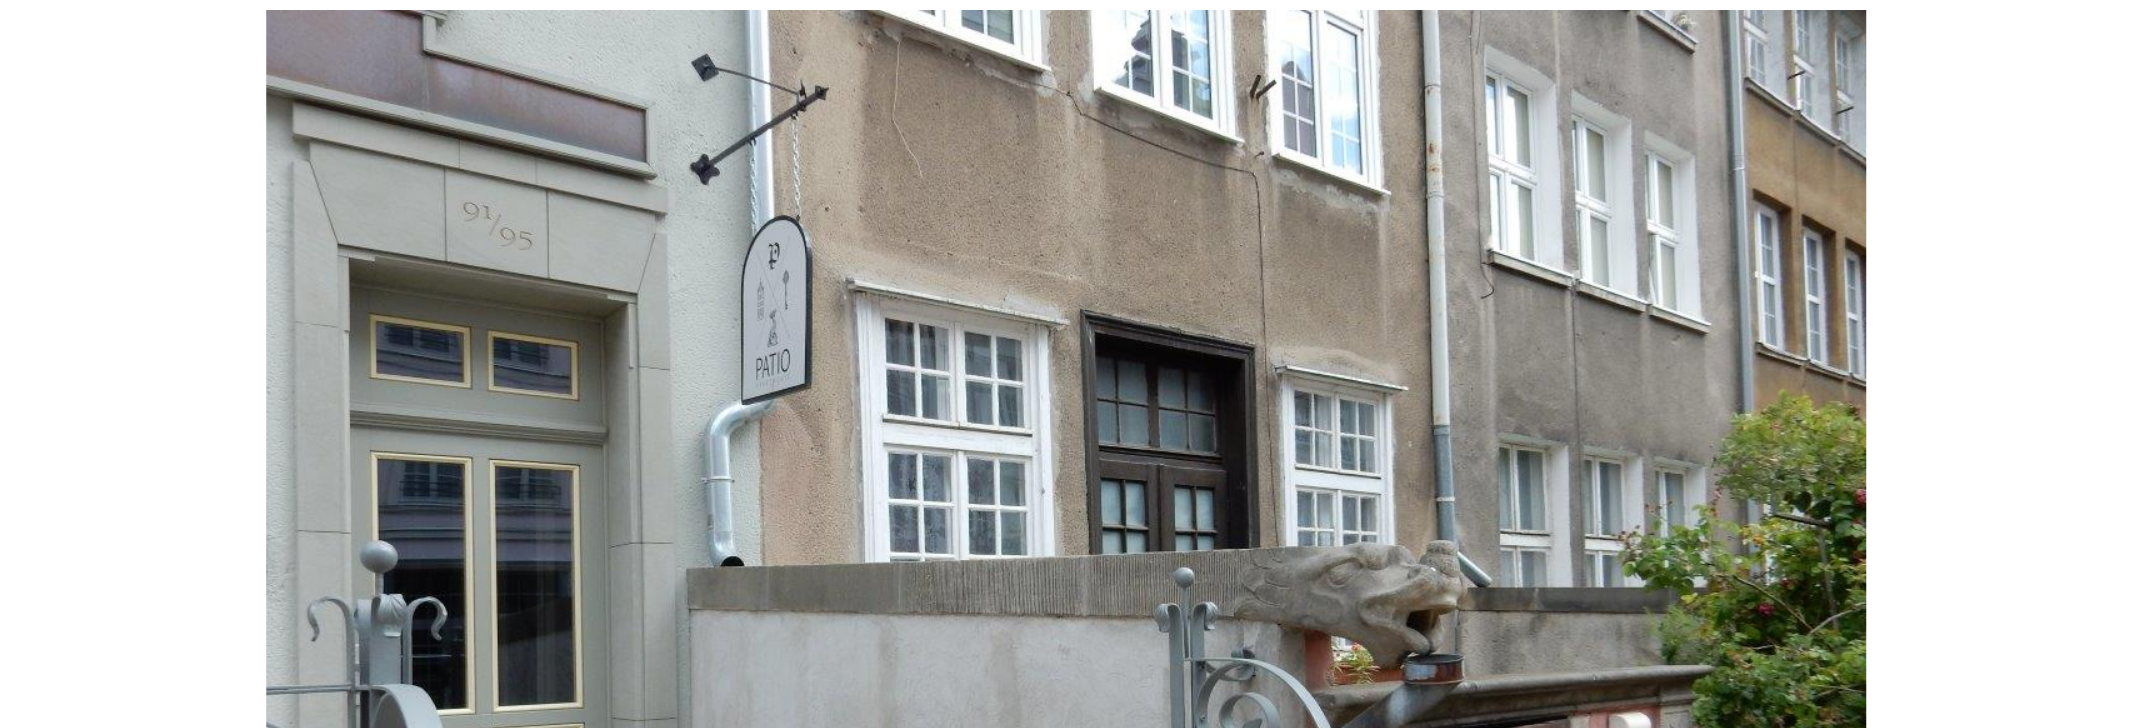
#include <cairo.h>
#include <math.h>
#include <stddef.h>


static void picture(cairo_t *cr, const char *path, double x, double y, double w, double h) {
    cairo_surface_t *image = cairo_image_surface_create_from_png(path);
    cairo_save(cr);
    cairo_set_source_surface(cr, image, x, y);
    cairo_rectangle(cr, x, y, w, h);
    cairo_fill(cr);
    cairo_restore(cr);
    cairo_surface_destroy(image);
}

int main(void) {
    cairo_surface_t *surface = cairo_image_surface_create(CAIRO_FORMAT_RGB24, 2131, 728);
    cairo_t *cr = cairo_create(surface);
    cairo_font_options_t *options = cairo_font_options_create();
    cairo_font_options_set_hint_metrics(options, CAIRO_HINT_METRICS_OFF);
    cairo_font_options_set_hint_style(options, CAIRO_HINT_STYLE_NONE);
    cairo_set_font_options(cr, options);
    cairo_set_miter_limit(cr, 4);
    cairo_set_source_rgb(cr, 1, 1, 1);
    cairo_paint(cr);
    picture(cr, "img1.png", 266, 10, 1601, 718);
    cairo_surface_write_to_png(surface, "page.png");
    cairo_font_options_destroy(options);
    cairo_destroy(cr);
    cairo_surface_destroy(surface);
    return 0;
}
